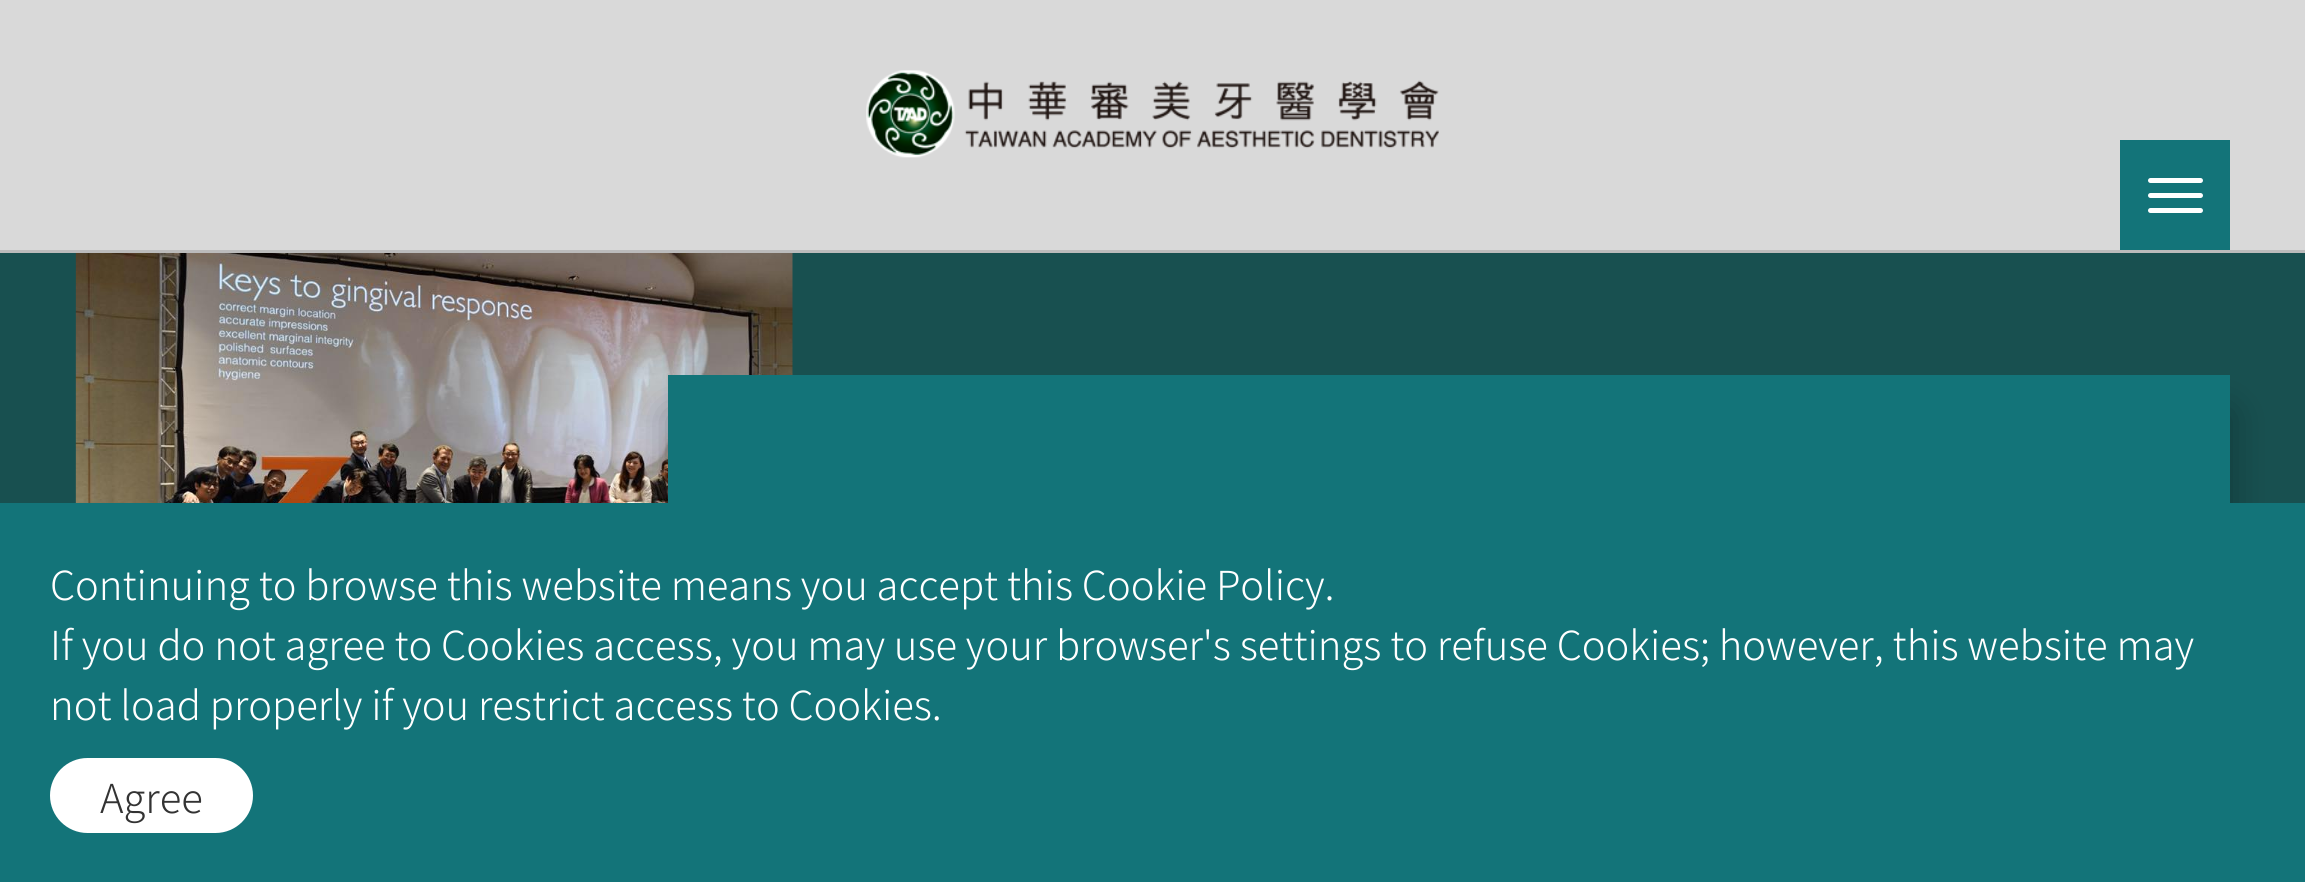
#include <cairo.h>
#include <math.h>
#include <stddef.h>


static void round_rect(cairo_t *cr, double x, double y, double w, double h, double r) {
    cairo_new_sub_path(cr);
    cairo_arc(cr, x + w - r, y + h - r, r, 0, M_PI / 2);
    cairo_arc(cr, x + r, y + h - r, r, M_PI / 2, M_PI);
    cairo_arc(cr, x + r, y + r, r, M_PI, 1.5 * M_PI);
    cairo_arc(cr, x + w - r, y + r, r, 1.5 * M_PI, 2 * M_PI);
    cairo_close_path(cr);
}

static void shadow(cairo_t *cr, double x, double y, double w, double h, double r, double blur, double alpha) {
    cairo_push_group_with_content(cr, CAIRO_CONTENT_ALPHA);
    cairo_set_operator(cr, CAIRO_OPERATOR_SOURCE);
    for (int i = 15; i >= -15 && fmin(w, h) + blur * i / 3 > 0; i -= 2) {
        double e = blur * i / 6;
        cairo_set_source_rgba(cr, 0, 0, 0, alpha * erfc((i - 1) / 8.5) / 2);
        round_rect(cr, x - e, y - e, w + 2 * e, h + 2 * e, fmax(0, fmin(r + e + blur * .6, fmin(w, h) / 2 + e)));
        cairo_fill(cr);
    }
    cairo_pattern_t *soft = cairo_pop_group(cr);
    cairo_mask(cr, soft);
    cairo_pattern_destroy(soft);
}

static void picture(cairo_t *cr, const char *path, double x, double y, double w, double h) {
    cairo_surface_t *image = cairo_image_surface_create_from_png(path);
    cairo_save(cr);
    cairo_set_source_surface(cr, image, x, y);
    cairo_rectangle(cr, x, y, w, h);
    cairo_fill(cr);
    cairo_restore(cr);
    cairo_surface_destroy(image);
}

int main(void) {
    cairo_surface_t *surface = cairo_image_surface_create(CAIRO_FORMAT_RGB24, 2305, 882);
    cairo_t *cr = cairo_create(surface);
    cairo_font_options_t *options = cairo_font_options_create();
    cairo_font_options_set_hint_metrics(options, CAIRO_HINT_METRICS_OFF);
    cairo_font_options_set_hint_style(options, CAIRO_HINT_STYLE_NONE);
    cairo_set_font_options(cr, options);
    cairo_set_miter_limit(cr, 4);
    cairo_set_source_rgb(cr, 0.094, 0.314, 0.314);
    cairo_paint(cr);
    cairo_set_source_rgb(cr, 0.851, 0.851, 0.851);
    cairo_rectangle(cr, 0, 0, 2305, 250);
    cairo_fill(cr);
    cairo_set_source_rgb(cr, 0.733, 0.733, 0.733);
    cairo_rectangle(cr, 0, 250, 2305, 3);
    cairo_fill(cr);
    picture(cr, "img1.png", 866, 70, 573, 88);
    cairo_set_source_rgb(cr, 0.078, 0.455, 0.475);
    cairo_rectangle(cr, 2120, 140, 110, 110);
    cairo_fill(cr);
    cairo_set_source_rgb(cr, 1, 1, 1);
    round_rect(cr, 2148, 193, 55, 5, 2.5);
    cairo_fill(cr);
    round_rect(cr, 2148, 178, 55, 5, 2.5);
    cairo_fill(cr);
    round_rect(cr, 2148, 208, 55, 5, 2.5);
    cairo_fill(cr);
    picture(cr, "img2.png", 75, 253, 718, 250);
    cairo_set_source_rgb(cr, 0, 0, 0);
    shadow(cr, 668, 413, 1562, 300, 0, 19, 0.3);
    cairo_set_source_rgb(cr, 0.078, 0.455, 0.475);
    cairo_rectangle(cr, 668, 375, 1562, 128);
    cairo_fill(cr);
    cairo_rectangle(cr, 0, 503, 2305, 379);
    cairo_fill(cr);
    cairo_select_font_face(cr, "Noto Sans TC Thin", CAIRO_FONT_SLANT_NORMAL, CAIRO_FONT_WEIGHT_NORMAL);
    cairo_set_font_size(cr, 40);
    cairo_set_source_rgb(cr, 1, 1, 1);
    cairo_move_to(cr, 50, 600);
    cairo_show_text(cr, "Continuing to browse this website means you accept this Cookie Policy.");
    cairo_move_to(cr, 50, 660);
    cairo_show_text(cr, "If you do not agree to Cookies access, you may use your browser's settings to refuse Cookies; however, this website may");
    cairo_move_to(cr, 50, 720);
    cairo_show_text(cr, "not load properly if you restrict access to Cookies.");
    round_rect(cr, 50, 758, 203, 75, 37.5);
    cairo_fill(cr);
    cairo_set_source_rgb(cr, 0.2, 0.2, 0.2);
    cairo_move_to(cr, 100, 813);
    cairo_show_text(cr, "Agree");
    cairo_surface_write_to_png(surface, "page.png");
    cairo_font_options_destroy(options);
    cairo_destroy(cr);
    cairo_surface_destroy(surface);
    return 0;
}
